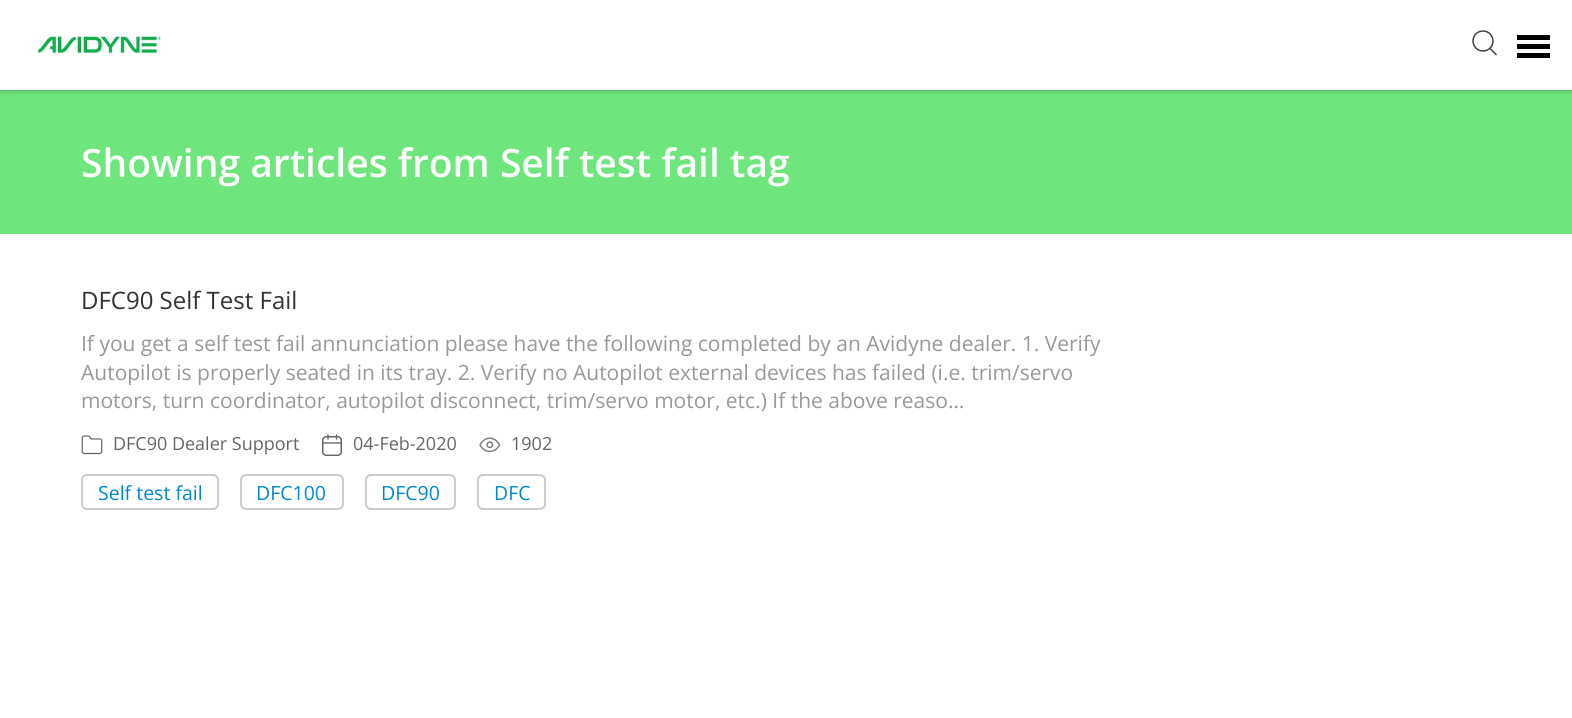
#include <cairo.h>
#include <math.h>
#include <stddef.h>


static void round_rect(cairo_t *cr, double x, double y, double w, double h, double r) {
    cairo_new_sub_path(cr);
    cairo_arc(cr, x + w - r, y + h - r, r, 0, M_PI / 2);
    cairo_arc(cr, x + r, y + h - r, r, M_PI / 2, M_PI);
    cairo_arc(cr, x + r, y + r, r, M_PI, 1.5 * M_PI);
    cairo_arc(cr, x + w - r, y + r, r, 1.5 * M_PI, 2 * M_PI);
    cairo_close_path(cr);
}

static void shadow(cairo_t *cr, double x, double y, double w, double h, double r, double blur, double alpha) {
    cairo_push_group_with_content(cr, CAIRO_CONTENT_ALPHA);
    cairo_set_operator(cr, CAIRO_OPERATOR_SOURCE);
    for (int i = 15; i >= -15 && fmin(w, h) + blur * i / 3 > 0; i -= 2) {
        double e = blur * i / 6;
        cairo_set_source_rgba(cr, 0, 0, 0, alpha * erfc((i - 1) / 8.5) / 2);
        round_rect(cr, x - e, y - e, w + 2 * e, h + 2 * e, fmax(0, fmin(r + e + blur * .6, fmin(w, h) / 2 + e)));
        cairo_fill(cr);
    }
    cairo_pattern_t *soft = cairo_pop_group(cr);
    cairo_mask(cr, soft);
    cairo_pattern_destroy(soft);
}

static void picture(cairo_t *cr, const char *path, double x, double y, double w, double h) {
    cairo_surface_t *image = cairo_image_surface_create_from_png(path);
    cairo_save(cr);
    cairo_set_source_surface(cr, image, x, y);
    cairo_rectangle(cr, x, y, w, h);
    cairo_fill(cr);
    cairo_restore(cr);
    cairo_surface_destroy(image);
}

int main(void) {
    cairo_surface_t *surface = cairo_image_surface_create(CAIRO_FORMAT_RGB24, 1572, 718);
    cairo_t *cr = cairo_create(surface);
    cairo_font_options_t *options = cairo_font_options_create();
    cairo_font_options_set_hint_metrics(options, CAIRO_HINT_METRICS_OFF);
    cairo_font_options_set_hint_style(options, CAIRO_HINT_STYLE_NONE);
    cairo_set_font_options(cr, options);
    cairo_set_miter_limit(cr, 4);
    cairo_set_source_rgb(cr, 1, 1, 1);
    cairo_paint(cr);
    cairo_set_source_rgb(cr, 0.435, 0.902, 0.49);
    cairo_rectangle(cr, 0, 90, 1572, 144);
    cairo_fill(cr);
    cairo_save(cr);
    cairo_rectangle(cr, 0, 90, 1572, 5);
    cairo_clip(cr);
    cairo_set_source_rgb(cr, 0, 0, 0);
    shadow(cr, 0, 2, 1572, 90, 0, 2, 0.2);
    cairo_restore(cr);
    picture(cr, "img1.png", 37, 36, 124, 18);
    cairo_arc(cr, 1483, 41, 10, 0, 2 * M_PI);
    cairo_set_source_rgb(cr, 0.259, 0.259, 0.259);
    cairo_set_line_width(cr, 1.5);
    cairo_stroke(cr);
    cairo_new_path(cr);
    cairo_move_to(cr, 1490.5, 49);
    cairo_line_to(cr, 1496, 54.5);
    cairo_set_line_cap(cr, CAIRO_LINE_CAP_SQUARE);
    cairo_stroke(cr);
    cairo_set_source_rgb(cr, 0, 0, 0);
    cairo_rectangle(cr, 1517, 35, 33, 5);
    cairo_fill(cr);
    cairo_rectangle(cr, 1517, 44, 33, 5);
    cairo_fill(cr);
    cairo_rectangle(cr, 1517, 53, 33, 5);
    cairo_fill(cr);
    cairo_select_font_face(cr, "Open Sans SemiBold", CAIRO_FONT_SLANT_NORMAL, CAIRO_FONT_WEIGHT_NORMAL);
    cairo_set_font_size(cr, 39);
    cairo_set_source_rgb(cr, 1, 1, 1);
    cairo_move_to(cr, 81, 177);
    cairo_show_text(cr, "Showing articles from Self test fail tag");
    cairo_select_font_face(cr, "Open Sans", CAIRO_FONT_SLANT_NORMAL, CAIRO_FONT_WEIGHT_NORMAL);
    cairo_set_font_size(cr, 24);
    cairo_set_source_rgb(cr, 0.2, 0.2, 0.2);
    cairo_move_to(cr, 81, 309);
    cairo_show_text(cr, "DFC90 Self Test Fail");
    cairo_set_font_size(cr, 21);
    cairo_set_source_rgb(cr, 0.6, 0.6, 0.6);
    cairo_move_to(cr, 81, 351);
    cairo_show_text(cr, "If you get a self test fail annunciation please have the following completed by an Avidyne dealer. 1. Verify");
    cairo_move_to(cr, 81, 380);
    cairo_show_text(cr, "Autopilot is properly seated in its tray. 2. Verify no Autopilot external devices has failed (i.e. trim/servo");
    cairo_move_to(cr, 81, 408);
    cairo_show_text(cr, "motors, turn coordinator, autopilot disconnect, trim/servo motor, etc.) If the above reaso…");
    picture(cr, "img2.png", 81, 435, 22, 20);
    cairo_set_font_size(cr, 18);
    cairo_set_source_rgb(cr, 0.4, 0.4, 0.4);
    cairo_move_to(cr, 113, 450);
    cairo_show_text(cr, "DFC90 Dealer Support");
    round_rect(cr, 322.75, 436.75, 18.5, 18.5, 3.25);
    cairo_set_line_cap(cr, CAIRO_LINE_CAP_BUTT);
    cairo_stroke(cr);
    cairo_new_path(cr);
    cairo_move_to(cr, 336.5, 435);
    cairo_line_to(cr, 336.5, 439);
    cairo_move_to(cr, 328, 435);
    cairo_line_to(cr, 328, 439);
    cairo_move_to(cr, 323, 443);
    cairo_line_to(cr, 341.5, 443);
    cairo_set_line_width(cr, 1.4);
    cairo_set_line_cap(cr, CAIRO_LINE_CAP_ROUND);
    cairo_set_line_join(cr, CAIRO_LINE_JOIN_ROUND);
    cairo_stroke(cr);
    cairo_move_to(cr, 353, 450);
    cairo_show_text(cr, "04-Feb-2020");
    cairo_new_path(cr);
    cairo_move_to(cr, 480, 445);
    cairo_curve_to(cr, 484.5, 436, 495, 436, 499.5, 445);
    cairo_curve_to(cr, 495, 453.5, 484.5, 453.5, 480, 445);
    cairo_close_path(cr);
    cairo_set_source_rgb(cr, 0.502, 0.502, 0.502);
    cairo_set_line_width(cr, 1.5);
    cairo_stroke(cr);
    cairo_arc(cr, 489.8, 444.8, 2.7, 0, 2 * M_PI);
    cairo_set_line_cap(cr, CAIRO_LINE_CAP_BUTT);
    cairo_set_line_join(cr, CAIRO_LINE_JOIN_MITER);
    cairo_stroke(cr);
    cairo_set_source_rgb(cr, 0.4, 0.4, 0.4);
    cairo_move_to(cr, 511, 450);
    cairo_show_text(cr, "1902");
    round_rect(cr, 82, 475, 136, 34, 5);
    cairo_set_source_rgb(cr, 0.8, 0.8, 0.8);
    cairo_set_line_width(cr, 2);
    cairo_stroke(cr);
    cairo_set_font_size(cr, 19.5);
    cairo_set_source_rgb(cr, 0, 0.533, 0.8);
    cairo_move_to(cr, 98, 500);
    cairo_show_text(cr, "Self test fail");
    round_rect(cr, 241, 475, 102, 34, 5);
    cairo_set_source_rgb(cr, 0.8, 0.8, 0.8);
    cairo_stroke(cr);
    cairo_set_source_rgb(cr, 0, 0.533, 0.8);
    cairo_move_to(cr, 256, 500);
    cairo_show_text(cr, "DFC100");
    round_rect(cr, 366, 475, 89, 34, 5);
    cairo_set_source_rgb(cr, 0.8, 0.8, 0.8);
    cairo_stroke(cr);
    cairo_set_source_rgb(cr, 0, 0.533, 0.8);
    cairo_move_to(cr, 381, 500);
    cairo_show_text(cr, "DFC90");
    round_rect(cr, 478, 475, 67, 34, 5);
    cairo_set_source_rgb(cr, 0.8, 0.8, 0.8);
    cairo_stroke(cr);
    cairo_set_source_rgb(cr, 0, 0.533, 0.8);
    cairo_move_to(cr, 494, 500);
    cairo_show_text(cr, "DFC");
    cairo_surface_write_to_png(surface, "page.png");
    cairo_font_options_destroy(options);
    cairo_destroy(cr);
    cairo_surface_destroy(surface);
    return 0;
}
